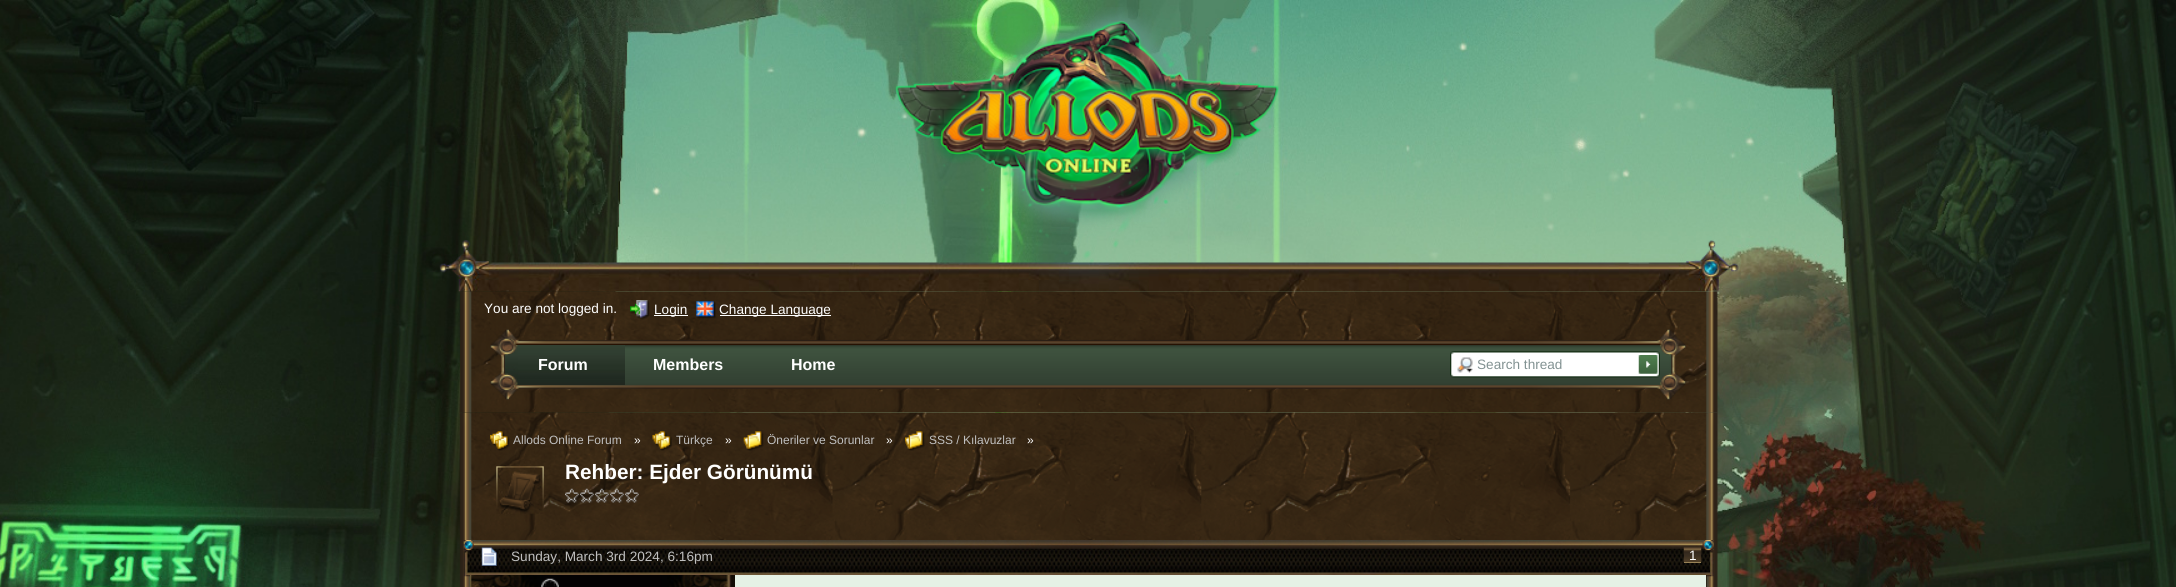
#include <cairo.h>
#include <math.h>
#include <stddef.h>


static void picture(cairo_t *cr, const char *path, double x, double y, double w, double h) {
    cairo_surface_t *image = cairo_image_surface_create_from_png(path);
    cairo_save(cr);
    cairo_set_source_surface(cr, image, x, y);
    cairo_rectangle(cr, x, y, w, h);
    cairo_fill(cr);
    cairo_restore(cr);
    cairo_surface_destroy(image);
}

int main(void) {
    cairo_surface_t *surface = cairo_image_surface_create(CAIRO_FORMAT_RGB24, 2176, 587);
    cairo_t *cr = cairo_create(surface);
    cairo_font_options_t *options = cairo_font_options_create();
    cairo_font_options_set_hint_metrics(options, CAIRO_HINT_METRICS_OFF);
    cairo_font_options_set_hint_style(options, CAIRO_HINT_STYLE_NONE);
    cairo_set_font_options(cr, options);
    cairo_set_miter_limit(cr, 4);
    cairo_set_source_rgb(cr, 1, 1, 1);
    cairo_paint(cr);
    picture(cr, "img1.png", 0, 0, 2176, 587);
    picture(cr, "img4.png", 459, 291, 1260, 122);
    cairo_select_font_face(cr, "Liberation Sans", CAIRO_FONT_SLANT_NORMAL, CAIRO_FONT_WEIGHT_NORMAL);
    cairo_set_font_size(cr, 13.6);
    cairo_set_source_rgb(cr, 1, 1, 1);
    cairo_move_to(cr, 484, 313);
    cairo_show_text(cr, "You are not logged in.");
    picture(cr, "img2.png", 630, 300, 20, 20);
    cairo_rectangle(cr, 654, 315, 34, 1);
    cairo_fill(cr);
    cairo_move_to(cr, 654, 314);
    cairo_show_text(cr, "Login");
    picture(cr, "img3.png", 696, 301, 20, 18);
    cairo_rectangle(cr, 720, 315, 111, 1);
    cairo_fill(cr);
    cairo_move_to(cr, 719, 314);
    cairo_show_text(cr, "Change Language");
    picture(cr, "img5.png", 490, 329, 1196, 71);
    picture(cr, "img6.png", 518, 345, 107, 40);
    picture(cr, "img7.png", 505, 345, 13, 40);
    cairo_select_font_face(cr, "Liberation Sans", CAIRO_FONT_SLANT_NORMAL, CAIRO_FONT_WEIGHT_BOLD);
    cairo_set_font_size(cr, 16);
    cairo_move_to(cr, 538, 370);
    cairo_show_text(cr, "Forum");
    cairo_move_to(cr, 653, 370);
    cairo_show_text(cr, "Members");
    cairo_move_to(cr, 791, 370);
    cairo_show_text(cr, "Home");
    picture(cr, "img8.png", 439, 240, 1300, 52);
    picture(cr, "img9.png", 891, 7, 388, 257);
    picture(cr, "img10.png", 1450, 351, 210, 27);
    cairo_select_font_face(cr, "Liberation Sans", CAIRO_FONT_SLANT_NORMAL, CAIRO_FONT_WEIGHT_NORMAL);
    cairo_set_font_size(cr, 13.6);
    cairo_set_source_rgb(cr, 0.51, 0.573, 0.573);
    cairo_move_to(cr, 1477, 369);
    cairo_show_text(cr, "Search thread");
    picture(cr, "img11.png", 1638, 355, 20, 19);
    picture(cr, "img12.png", 459, 412, 1259, 175);
    picture(cr, "img13.png", 490, 431, 20, 20);
    cairo_set_font_size(cr, 12);
    cairo_set_source_rgb(cr, 0.753, 0.753, 0.753);
    cairo_move_to(cr, 513, 444);
    cairo_show_text(cr, "Allods Online Forum");
    cairo_set_source_rgb(cr, 1, 1, 1);
    cairo_move_to(cr, 634, 444);
    cairo_show_text(cr, "»");
    picture(cr, "img14.png", 652, 431, 20, 20);
    cairo_set_source_rgb(cr, 0.753, 0.753, 0.753);
    cairo_move_to(cr, 676, 444);
    cairo_show_text(cr, "Türkçe");
    cairo_set_source_rgb(cr, 1, 1, 1);
    cairo_move_to(cr, 725, 444);
    cairo_show_text(cr, "»");
    picture(cr, "img15.png", 743, 431, 21, 20);
    cairo_set_source_rgb(cr, 0.753, 0.753, 0.753);
    cairo_move_to(cr, 767, 444);
    cairo_show_text(cr, "Öneriler ve Sorunlar");
    cairo_set_source_rgb(cr, 1, 1, 1);
    cairo_move_to(cr, 886, 444);
    cairo_show_text(cr, "»");
    picture(cr, "img16.png", 905, 431, 20, 20);
    cairo_set_source_rgb(cr, 0.753, 0.753, 0.753);
    cairo_move_to(cr, 929, 444);
    cairo_show_text(cr, "SSS / Kılavuzlar");
    cairo_set_source_rgb(cr, 1, 1, 1);
    cairo_move_to(cr, 1027, 444);
    cairo_show_text(cr, "»");
    picture(cr, "img17.png", 496, 466, 48, 48);
    cairo_select_font_face(cr, "Liberation Sans", CAIRO_FONT_SLANT_NORMAL, CAIRO_FONT_WEIGHT_BOLD);
    cairo_set_font_size(cr, 20.75);
    cairo_move_to(cr, 565, 479);
    cairo_show_text(cr, "Rehber: Ejder Görünümü");
    picture(cr, "img18.png", 565, 488, 74, 15);
    picture(cr, "img19.png", 1706, 576, 1, 11);
    picture(cr, "img20.png", 463, 540, 1251, 37);
    picture(cr, "img21.png", 481, 547, 17, 20);
    cairo_select_font_face(cr, "Liberation Sans", CAIRO_FONT_SLANT_NORMAL, CAIRO_FONT_WEIGHT_NORMAL);
    cairo_set_font_size(cr, 13.6);
    cairo_set_source_rgb(cr, 0.753, 0.753, 0.753);
    cairo_move_to(cr, 511, 561);
    cairo_show_text(cr, "Sunday, March 3rd 2024, 6:16pm");
    cairo_set_source_rgb(cr, 0.875, 0.773, 0.518);
    cairo_rectangle(cr, 1684, 562, 17, 1);
    cairo_fill(cr);
    picture(cr, "img22.png", 1683, 547, 19, 16);
    cairo_set_source_rgb(cr, 1, 1, 1);
    cairo_move_to(cr, 1689, 560);
    cairo_show_text(cr, "1");
    picture(cr, "img23.png", 470, 575, 1237, 12);
    picture(cr, "img24.png", 541, 578, 18, 9);
    cairo_set_source_rgb(cr, 0.898, 0.945, 0.898);
    cairo_rectangle(cr, 735, 575, 971, 12);
    cairo_fill(cr);
    cairo_surface_write_to_png(surface, "page.png");
    cairo_font_options_destroy(options);
    cairo_destroy(cr);
    cairo_surface_destroy(surface);
    return 0;
}
